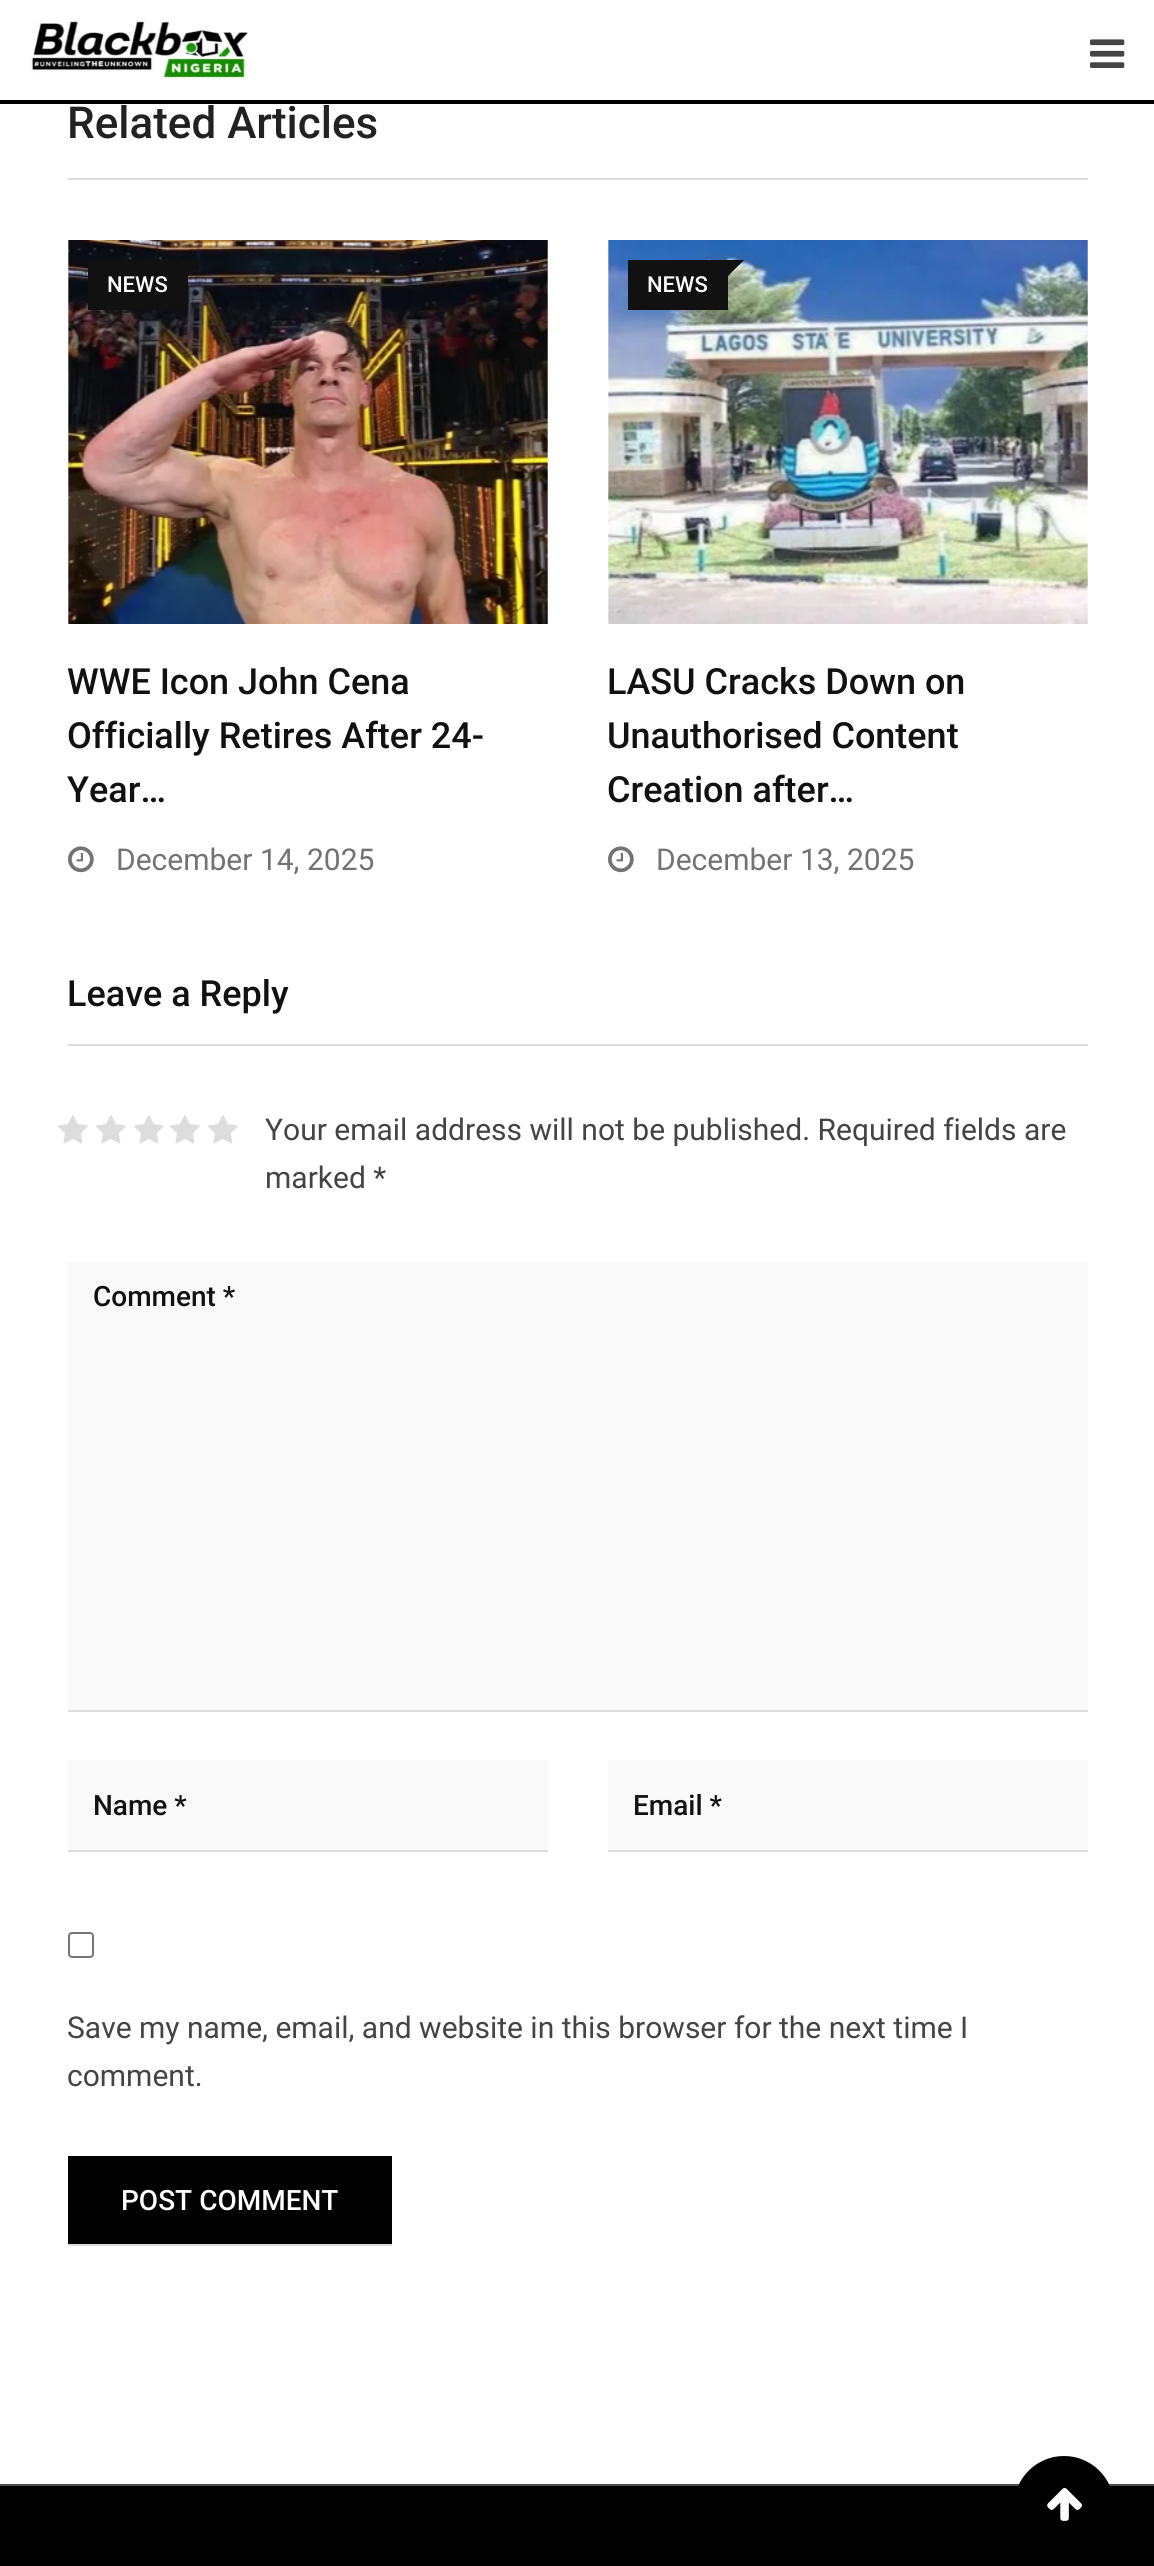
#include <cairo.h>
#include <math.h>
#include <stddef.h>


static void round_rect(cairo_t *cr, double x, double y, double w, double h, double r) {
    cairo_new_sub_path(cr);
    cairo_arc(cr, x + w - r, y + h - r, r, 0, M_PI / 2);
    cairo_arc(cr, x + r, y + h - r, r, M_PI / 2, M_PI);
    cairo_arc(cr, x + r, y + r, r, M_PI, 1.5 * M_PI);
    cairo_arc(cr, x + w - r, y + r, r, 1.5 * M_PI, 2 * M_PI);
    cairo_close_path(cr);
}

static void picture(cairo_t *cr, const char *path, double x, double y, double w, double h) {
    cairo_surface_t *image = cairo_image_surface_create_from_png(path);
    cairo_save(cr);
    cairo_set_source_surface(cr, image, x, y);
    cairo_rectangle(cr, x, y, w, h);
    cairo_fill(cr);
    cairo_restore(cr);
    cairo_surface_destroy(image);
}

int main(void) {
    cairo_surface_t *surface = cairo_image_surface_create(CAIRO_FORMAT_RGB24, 1154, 2566);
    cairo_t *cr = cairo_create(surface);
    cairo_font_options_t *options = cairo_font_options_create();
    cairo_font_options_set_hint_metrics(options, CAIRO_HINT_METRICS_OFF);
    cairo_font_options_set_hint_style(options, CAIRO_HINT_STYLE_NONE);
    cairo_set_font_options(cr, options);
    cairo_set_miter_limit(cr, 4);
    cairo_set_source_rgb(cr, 1, 1, 1);
    cairo_paint(cr);
    cairo_set_source_rgb(cr, 0, 0, 0);
    cairo_rectangle(cr, 0, 100, 1154, 4);
    cairo_fill(cr);
    picture(cr, "img1.png", 30, 20, 218, 60);
    picture(cr, "img2.png", 1090, 39, 35, 29);
    cairo_set_source_rgb(cr, 0.863, 0.863, 0.863);
    cairo_rectangle(cr, 68, 178, 1020, 2);
    cairo_fill(cr);
    cairo_select_font_face(cr, "Roboto Medium", CAIRO_FONT_SLANT_NORMAL, CAIRO_FONT_WEIGHT_NORMAL);
    cairo_set_font_size(cr, 44);
    cairo_set_source_rgb(cr, 0.133, 0.133, 0.133);
    cairo_move_to(cr, 67, 138);
    cairo_show_text(cr, "Related Articles");
    picture(cr, "img3.png", 68, 240, 480, 384);
    cairo_set_source_rgb(cr, 0.067, 0.067, 0.067);
    cairo_rectangle(cr, 88, 260, 100, 50);
    cairo_fill(cr);
    cairo_new_path(cr);
    cairo_move_to(cr, 188, 260);
    cairo_line_to(cr, 204, 260);
    cairo_line_to(cr, 188, 276);
    cairo_close_path(cr);
    cairo_fill(cr);
    cairo_set_font_size(cr, 22);
    cairo_set_source_rgb(cr, 1, 1, 1);
    cairo_move_to(cr, 107, 292);
    cairo_show_text(cr, "NEWS");
    cairo_set_font_size(cr, 36);
    cairo_set_source_rgb(cr, 0.067, 0.067, 0.067);
    cairo_move_to(cr, 67, 694);
    cairo_show_text(cr, "WWE Icon John Cena");
    cairo_move_to(cr, 67, 748);
    cairo_show_text(cr, "Officially Retires After 24-");
    cairo_move_to(cr, 67, 802);
    cairo_show_text(cr, "Year…");
    picture(cr, "img4.png", 68, 846, 26, 27);
    cairo_select_font_face(cr, "Roboto", CAIRO_FONT_SLANT_NORMAL, CAIRO_FONT_WEIGHT_NORMAL);
    cairo_set_font_size(cr, 30);
    cairo_set_source_rgb(cr, 0.459, 0.447, 0.447);
    cairo_move_to(cr, 116, 870);
    cairo_show_text(cr, "December 14, 2025");
    picture(cr, "img5.png", 608, 240, 480, 384);
    cairo_set_source_rgb(cr, 0.067, 0.067, 0.067);
    cairo_rectangle(cr, 628, 260, 100, 50);
    cairo_fill(cr);
    cairo_new_path(cr);
    cairo_move_to(cr, 728, 260);
    cairo_line_to(cr, 744, 260);
    cairo_line_to(cr, 728, 276);
    cairo_close_path(cr);
    cairo_fill(cr);
    cairo_select_font_face(cr, "Roboto Medium", CAIRO_FONT_SLANT_NORMAL, CAIRO_FONT_WEIGHT_NORMAL);
    cairo_set_font_size(cr, 22);
    cairo_set_source_rgb(cr, 1, 1, 1);
    cairo_move_to(cr, 647, 292);
    cairo_show_text(cr, "NEWS");
    cairo_set_font_size(cr, 36);
    cairo_set_source_rgb(cr, 0.067, 0.067, 0.067);
    cairo_move_to(cr, 607, 694);
    cairo_show_text(cr, "LASU Cracks Down on");
    cairo_move_to(cr, 607, 748);
    cairo_show_text(cr, "Unauthorised Content");
    cairo_move_to(cr, 607, 802);
    cairo_show_text(cr, "Creation after…");
    picture(cr, "img4.png", 608, 846, 26, 27);
    cairo_select_font_face(cr, "Roboto", CAIRO_FONT_SLANT_NORMAL, CAIRO_FONT_WEIGHT_NORMAL);
    cairo_set_font_size(cr, 30);
    cairo_set_source_rgb(cr, 0.459, 0.447, 0.447);
    cairo_move_to(cr, 656, 870);
    cairo_show_text(cr, "December 13, 2025");
    cairo_set_source_rgb(cr, 0.863, 0.863, 0.863);
    cairo_rectangle(cr, 68, 1044, 1020, 2);
    cairo_fill(cr);
    cairo_select_font_face(cr, "Roboto Medium", CAIRO_FONT_SLANT_NORMAL, CAIRO_FONT_WEIGHT_NORMAL);
    cairo_set_font_size(cr, 36);
    cairo_set_source_rgb(cr, 0.067, 0.067, 0.067);
    cairo_move_to(cr, 67, 1006);
    cairo_show_text(cr, "Leave a Reply");
    picture(cr, "img6.png", 58, 1115, 30, 29);
    picture(cr, "img6.png", 96, 1115, 30, 29);
    picture(cr, "img6.png", 134, 1115, 30, 29);
    picture(cr, "img6.png", 170, 1115, 30, 29);
    picture(cr, "img6.png", 208, 1115, 30, 29);
    cairo_select_font_face(cr, "Roboto", CAIRO_FONT_SLANT_NORMAL, CAIRO_FONT_WEIGHT_NORMAL);
    cairo_set_font_size(cr, 30);
    cairo_set_source_rgb(cr, 0.267, 0.267, 0.267);
    cairo_move_to(cr, 265, 1140);
    cairo_show_text(cr, "Your email address will not be published. Required fields are");
    cairo_move_to(cr, 265, 1188);
    cairo_show_text(cr, "marked *");
    cairo_set_source_rgb(cr, 0.871, 0.871, 0.871);
    cairo_rectangle(cr, 68, 1710, 1020, 2);
    cairo_fill(cr);
    cairo_set_source_rgb(cr, 0.973, 0.973, 0.973);
    cairo_rectangle(cr, 68, 1262, 1020, 448);
    cairo_fill(cr);
    cairo_select_font_face(cr, "Roboto Medium", CAIRO_FONT_SLANT_NORMAL, CAIRO_FONT_WEIGHT_NORMAL);
    cairo_set_font_size(cr, 28);
    cairo_set_source_rgb(cr, 0.067, 0.067, 0.067);
    cairo_move_to(cr, 93, 1306);
    cairo_show_text(cr, "Comment *");
    cairo_set_source_rgb(cr, 0.871, 0.871, 0.871);
    cairo_rectangle(cr, 68, 1850, 480, 2);
    cairo_fill(cr);
    cairo_set_source_rgb(cr, 0.973, 0.973, 0.973);
    cairo_rectangle(cr, 68, 1760, 480, 90);
    cairo_fill(cr);
    cairo_set_source_rgb(cr, 0.067, 0.067, 0.067);
    cairo_move_to(cr, 93, 1815);
    cairo_show_text(cr, "Name *");
    cairo_set_source_rgb(cr, 0.871, 0.871, 0.871);
    cairo_rectangle(cr, 608, 1850, 480, 2);
    cairo_fill(cr);
    cairo_set_source_rgb(cr, 0.973, 0.973, 0.973);
    cairo_rectangle(cr, 608, 1760, 480, 90);
    cairo_fill(cr);
    cairo_set_source_rgb(cr, 0.067, 0.067, 0.067);
    cairo_move_to(cr, 633, 1815);
    cairo_show_text(cr, "Email *");
    round_rect(cr, 69, 1933, 24, 24, 3);
    cairo_set_source_rgb(cr, 0.463, 0.463, 0.463);
    cairo_stroke(cr);
    cairo_select_font_face(cr, "Roboto", CAIRO_FONT_SLANT_NORMAL, CAIRO_FONT_WEIGHT_NORMAL);
    cairo_set_font_size(cr, 30);
    cairo_set_source_rgb(cr, 0.267, 0.267, 0.267);
    cairo_move_to(cr, 67, 2038);
    cairo_show_text(cr, "Save my name, email, and website in this browser for the next time I");
    cairo_move_to(cr, 67, 2086);
    cairo_show_text(cr, "comment.");
    cairo_set_source_rgb(cr, 0.871, 0.871, 0.871);
    cairo_rectangle(cr, 68, 2244, 324, 2);
    cairo_fill(cr);
    cairo_set_source_rgb(cr, 0, 0, 0);
    cairo_rectangle(cr, 68, 2156, 324, 88);
    cairo_fill(cr);
    cairo_select_font_face(cr, "Roboto Medium", CAIRO_FONT_SLANT_NORMAL, CAIRO_FONT_WEIGHT_NORMAL);
    cairo_set_font_size(cr, 28);
    cairo_set_source_rgb(cr, 1, 1, 1);
    cairo_move_to(cr, 121, 2210);
    cairo_show_text(cr, "POST COMMENT");
    cairo_set_source_rgb(cr, 0, 0, 0);
    cairo_rectangle(cr, 0, 2486, 1154, 80);
    cairo_fill(cr);
    cairo_set_source_rgb(cr, 0.302, 0.302, 0.302);
    cairo_rectangle(cr, 0, 2484, 1154, 2);
    cairo_fill(cr);
    cairo_set_source_rgb(cr, 0, 0, 0);
    cairo_arc(cr, 1064, 2506, 48, 0, 2 * M_PI);
    cairo_fill_preserve(cr);
    cairo_set_line_width(cr, 4);
    cairo_stroke(cr);
    picture(cr, "img7.png", 1047, 2488, 35, 33);
    cairo_surface_write_to_png(surface, "page.png");
    cairo_font_options_destroy(options);
    cairo_destroy(cr);
    cairo_surface_destroy(surface);
    return 0;
}
